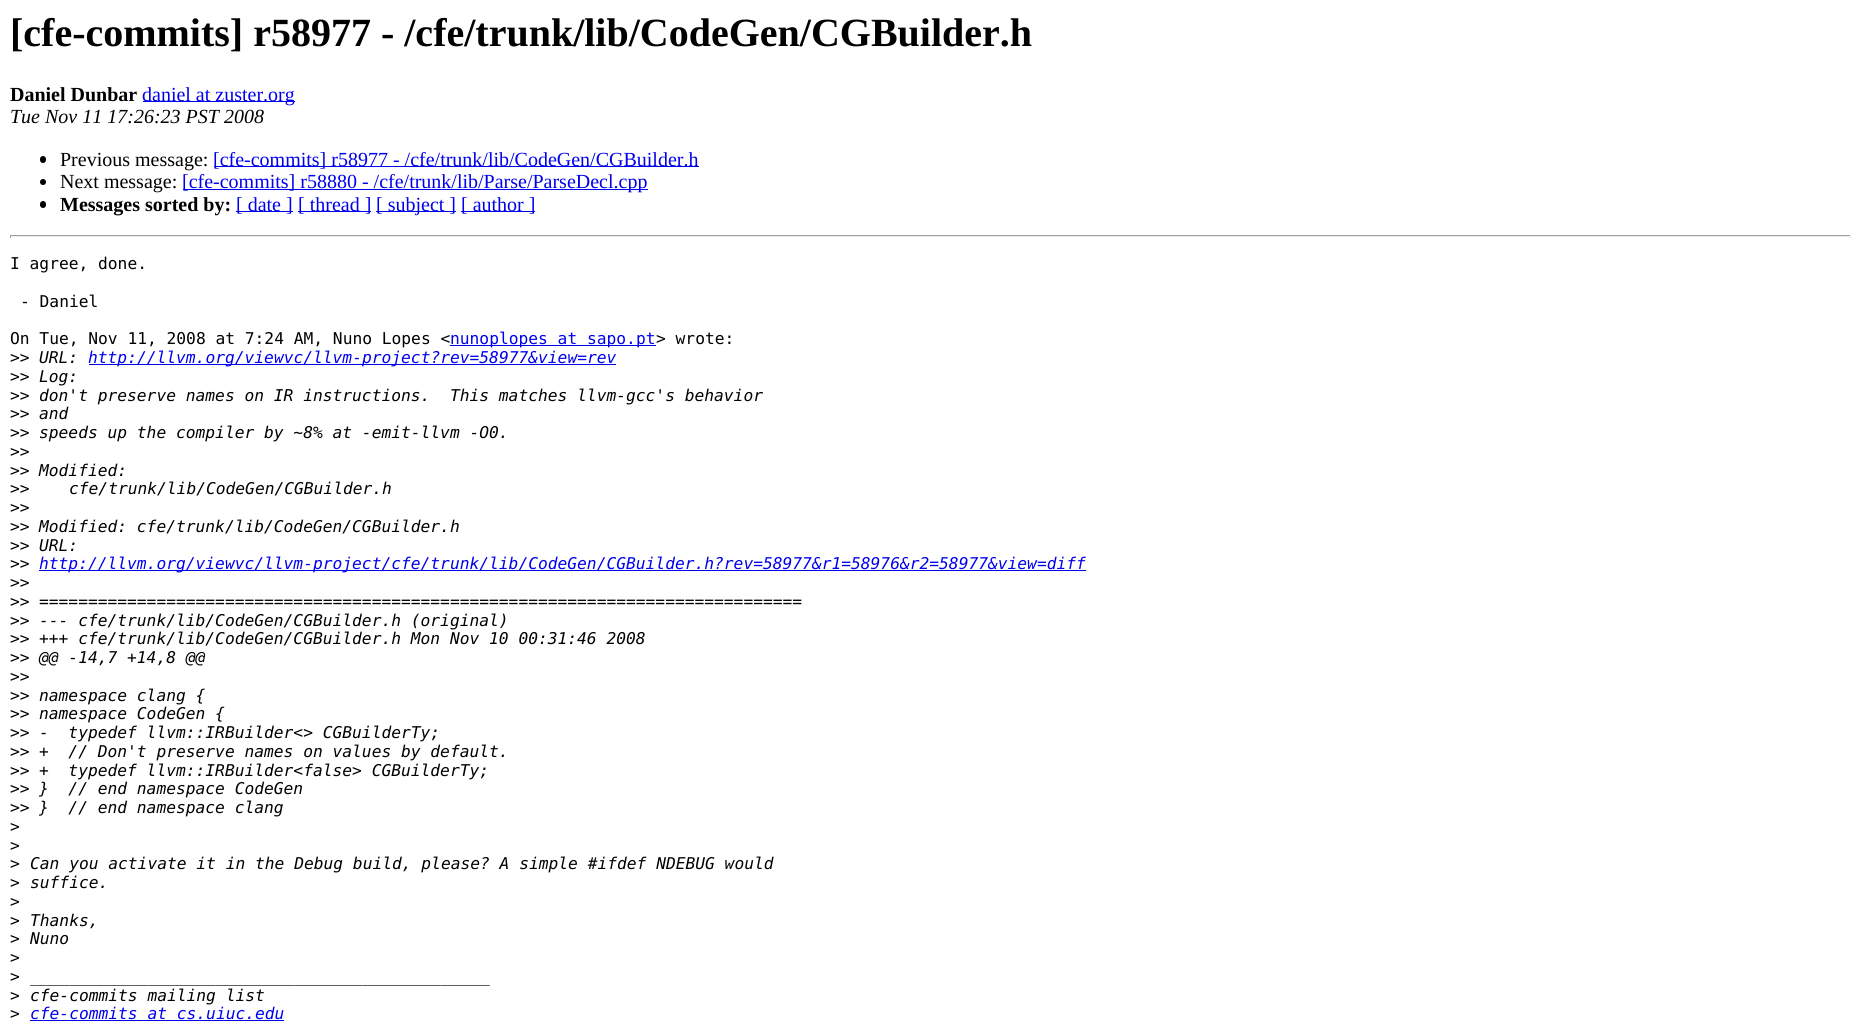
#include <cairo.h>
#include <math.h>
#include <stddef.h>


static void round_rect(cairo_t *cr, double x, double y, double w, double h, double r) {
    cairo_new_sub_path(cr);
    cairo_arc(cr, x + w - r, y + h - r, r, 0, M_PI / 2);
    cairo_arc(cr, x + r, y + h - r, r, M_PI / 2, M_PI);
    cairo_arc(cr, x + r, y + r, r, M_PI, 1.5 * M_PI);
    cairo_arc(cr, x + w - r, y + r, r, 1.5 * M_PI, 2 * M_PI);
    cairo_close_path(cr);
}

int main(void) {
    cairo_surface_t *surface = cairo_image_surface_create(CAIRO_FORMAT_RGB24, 1861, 1025);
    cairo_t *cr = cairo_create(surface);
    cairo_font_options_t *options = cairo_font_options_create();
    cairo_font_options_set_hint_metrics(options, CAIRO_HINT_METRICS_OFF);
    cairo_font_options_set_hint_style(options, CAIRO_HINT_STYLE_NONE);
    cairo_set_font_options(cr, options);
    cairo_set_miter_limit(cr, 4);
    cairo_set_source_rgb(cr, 1, 1, 1);
    cairo_paint(cr);
    cairo_select_font_face(cr, "Liberation Serif", CAIRO_FONT_SLANT_NORMAL, CAIRO_FONT_WEIGHT_BOLD);
    cairo_set_font_size(cr, 40);
    cairo_set_source_rgb(cr, 0, 0, 0);
    cairo_move_to(cr, 10, 46);
    cairo_show_text(cr, "[cfe-commits] r58977 - /cfe/trunk/lib/CodeGen/CGBuilder.h");
    cairo_set_font_size(cr, 20);
    cairo_move_to(cr, 10, 101);
    cairo_show_text(cr, "Daniel Dunbar");
    cairo_set_source_rgb(cr, 0, 0, 0.933);
    cairo_rectangle(cr, 143, 101, 152, 1);
    cairo_fill(cr);
    cairo_select_font_face(cr, "Liberation Serif", CAIRO_FONT_SLANT_NORMAL, CAIRO_FONT_WEIGHT_NORMAL);
    cairo_move_to(cr, 142, 101);
    cairo_show_text(cr, "daniel at zuster.org");
    cairo_select_font_face(cr, "Liberation Serif", CAIRO_FONT_SLANT_ITALIC, CAIRO_FONT_WEIGHT_NORMAL);
    cairo_set_source_rgb(cr, 0, 0, 0);
    cairo_move_to(cr, 10, 123);
    cairo_show_text(cr, "Tue Nov 11 17:26:23 PST 2008");
    round_rect(cr, 40, 156, 6, 7, 3);
    cairo_fill(cr);
    cairo_select_font_face(cr, "Liberation Serif", CAIRO_FONT_SLANT_NORMAL, CAIRO_FONT_WEIGHT_NORMAL);
    cairo_move_to(cr, 60, 166);
    cairo_show_text(cr, "Previous message:");
    cairo_set_source_rgb(cr, 0, 0, 0.933);
    cairo_rectangle(cr, 214, 166, 485, 1);
    cairo_fill(cr);
    cairo_move_to(cr, 213, 166);
    cairo_show_text(cr, "[cfe-commits] r58977 - /cfe/trunk/lib/CodeGen/CGBuilder.h");
    cairo_set_source_rgb(cr, 0, 0, 0);
    cairo_new_path(cr);
    cairo_arc(cr, 43, 182, 3, 0, 2 * M_PI);
    cairo_fill(cr);
    cairo_move_to(cr, 60, 188);
    cairo_show_text(cr, "Next message:");
    cairo_set_source_rgb(cr, 0, 0, 0.933);
    cairo_rectangle(cr, 183, 189, 465, 1);
    cairo_fill(cr);
    cairo_move_to(cr, 182, 188);
    cairo_show_text(cr, "[cfe-commits] r58880 - /cfe/trunk/lib/Parse/ParseDecl.cpp");
    cairo_set_source_rgb(cr, 0, 0, 0);
    round_rect(cr, 40, 201, 6, 7, 3);
    cairo_fill(cr);
    cairo_select_font_face(cr, "Liberation Serif", CAIRO_FONT_SLANT_NORMAL, CAIRO_FONT_WEIGHT_BOLD);
    cairo_move_to(cr, 60, 211);
    cairo_show_text(cr, "Messages sorted by:");
    cairo_set_source_rgb(cr, 0, 0, 0.933);
    cairo_rectangle(cr, 236, 211, 57, 1);
    cairo_fill(cr);
    cairo_select_font_face(cr, "Liberation Serif", CAIRO_FONT_SLANT_NORMAL, CAIRO_FONT_WEIGHT_NORMAL);
    cairo_move_to(cr, 236, 211);
    cairo_show_text(cr, "[ date ]");
    cairo_rectangle(cr, 298, 211, 73, 1);
    cairo_fill(cr);
    cairo_move_to(cr, 298, 211);
    cairo_show_text(cr, "[ thread ]");
    cairo_rectangle(cr, 376, 211, 80, 1);
    cairo_fill(cr);
    cairo_move_to(cr, 376, 211);
    cairo_show_text(cr, "[ subject ]");
    cairo_rectangle(cr, 461, 211, 74, 1);
    cairo_fill(cr);
    cairo_move_to(cr, 461, 211);
    cairo_show_text(cr, "[ author ]");
    cairo_set_source_rgb(cr, 0.624, 0.624, 0.624);
    cairo_rectangle(cr, 10, 235, 1841, 1);
    cairo_fill(cr);
    cairo_set_source_rgb(cr, 0.933, 0.933, 0.933);
    cairo_rectangle(cr, 1850, 235, 1, 3);
    cairo_fill(cr);
    cairo_rectangle(cr, 10, 236, 1841, 1);
    cairo_fill(cr);
    cairo_set_source_rgb(cr, 0.624, 0.624, 0.624);
    cairo_rectangle(cr, 10, 235, 1, 3);
    cairo_fill(cr);
    cairo_select_font_face(cr, "DejaVu Sans Mono", CAIRO_FONT_SLANT_NORMAL, CAIRO_FONT_WEIGHT_NORMAL);
    cairo_set_font_size(cr, 16.25);
    cairo_set_source_rgb(cr, 0, 0, 0);
    cairo_move_to(cr, 10, 269);
    cairo_show_text(cr, "I agree, done.");
    cairo_move_to(cr, 20, 307);
    cairo_show_text(cr, "- Daniel");
    cairo_move_to(cr, 10, 344);
    cairo_show_text(cr, "On Tue, Nov 11, 2008 at 7:24 AM, Nuno Lopes <");
    cairo_set_source_rgb(cr, 0, 0, 0.933);
    cairo_rectangle(cr, 450, 345, 206, 1);
    cairo_fill(cr);
    cairo_move_to(cr, 450, 344);
    cairo_show_text(cr, "nunoplopes at sapo.pt");
    cairo_set_source_rgb(cr, 0, 0, 0);
    cairo_move_to(cr, 656, 344);
    cairo_show_text(cr, "> wrote:");
    cairo_move_to(cr, 10, 363);
    cairo_show_text(cr, ">>");
    cairo_select_font_face(cr, "DejaVu Sans Mono", CAIRO_FONT_SLANT_ITALIC, CAIRO_FONT_WEIGHT_NORMAL);
    cairo_move_to(cr, 39, 363);
    cairo_show_text(cr, "URL:");
    cairo_set_source_rgb(cr, 0, 0, 0.933);
    cairo_rectangle(cr, 89, 364, 527, 1);
    cairo_fill(cr);
    cairo_move_to(cr, 88, 363);
    cairo_show_text(cr, "http://llvm.org/viewvc/llvm-project?rev=58977&view=rev");
    cairo_select_font_face(cr, "DejaVu Sans Mono", CAIRO_FONT_SLANT_NORMAL, CAIRO_FONT_WEIGHT_NORMAL);
    cairo_set_source_rgb(cr, 0, 0, 0);
    cairo_move_to(cr, 10, 382);
    cairo_show_text(cr, ">>");
    cairo_select_font_face(cr, "DejaVu Sans Mono", CAIRO_FONT_SLANT_ITALIC, CAIRO_FONT_WEIGHT_NORMAL);
    cairo_move_to(cr, 39, 382);
    cairo_show_text(cr, "Log:");
    cairo_select_font_face(cr, "DejaVu Sans Mono", CAIRO_FONT_SLANT_NORMAL, CAIRO_FONT_WEIGHT_NORMAL);
    cairo_move_to(cr, 10, 401);
    cairo_show_text(cr, ">>");
    cairo_select_font_face(cr, "DejaVu Sans Mono", CAIRO_FONT_SLANT_ITALIC, CAIRO_FONT_WEIGHT_NORMAL);
    cairo_move_to(cr, 39, 401);
    cairo_show_text(cr, "don't preserve names on IR instructions.  This matches llvm-gcc's behavior");
    cairo_select_font_face(cr, "DejaVu Sans Mono", CAIRO_FONT_SLANT_NORMAL, CAIRO_FONT_WEIGHT_NORMAL);
    cairo_move_to(cr, 10, 419);
    cairo_show_text(cr, ">>");
    cairo_select_font_face(cr, "DejaVu Sans Mono", CAIRO_FONT_SLANT_ITALIC, CAIRO_FONT_WEIGHT_NORMAL);
    cairo_move_to(cr, 39, 419);
    cairo_show_text(cr, "and");
    cairo_select_font_face(cr, "DejaVu Sans Mono", CAIRO_FONT_SLANT_NORMAL, CAIRO_FONT_WEIGHT_NORMAL);
    cairo_move_to(cr, 10, 438);
    cairo_show_text(cr, ">>");
    cairo_select_font_face(cr, "DejaVu Sans Mono", CAIRO_FONT_SLANT_ITALIC, CAIRO_FONT_WEIGHT_NORMAL);
    cairo_move_to(cr, 39, 438);
    cairo_show_text(cr, "speeds up the compiler by ~8% at -emit-llvm -O0.");
    cairo_select_font_face(cr, "DejaVu Sans Mono", CAIRO_FONT_SLANT_NORMAL, CAIRO_FONT_WEIGHT_NORMAL);
    cairo_move_to(cr, 10, 457);
    cairo_show_text(cr, ">>");
    cairo_move_to(cr, 10, 476);
    cairo_show_text(cr, ">>");
    cairo_select_font_face(cr, "DejaVu Sans Mono", CAIRO_FONT_SLANT_ITALIC, CAIRO_FONT_WEIGHT_NORMAL);
    cairo_move_to(cr, 39, 476);
    cairo_show_text(cr, "Modified:");
    cairo_select_font_face(cr, "DejaVu Sans Mono", CAIRO_FONT_SLANT_NORMAL, CAIRO_FONT_WEIGHT_NORMAL);
    cairo_move_to(cr, 10, 494);
    cairo_show_text(cr, ">>");
    cairo_select_font_face(cr, "DejaVu Sans Mono", CAIRO_FONT_SLANT_ITALIC, CAIRO_FONT_WEIGHT_NORMAL);
    cairo_move_to(cr, 69, 494);
    cairo_show_text(cr, "cfe/trunk/lib/CodeGen/CGBuilder.h");
    cairo_select_font_face(cr, "DejaVu Sans Mono", CAIRO_FONT_SLANT_NORMAL, CAIRO_FONT_WEIGHT_NORMAL);
    cairo_move_to(cr, 10, 513);
    cairo_show_text(cr, ">>");
    cairo_move_to(cr, 10, 532);
    cairo_show_text(cr, ">>");
    cairo_select_font_face(cr, "DejaVu Sans Mono", CAIRO_FONT_SLANT_ITALIC, CAIRO_FONT_WEIGHT_NORMAL);
    cairo_move_to(cr, 39, 532);
    cairo_show_text(cr, "Modified: cfe/trunk/lib/CodeGen/CGBuilder.h");
    cairo_select_font_face(cr, "DejaVu Sans Mono", CAIRO_FONT_SLANT_NORMAL, CAIRO_FONT_WEIGHT_NORMAL);
    cairo_move_to(cr, 10, 551);
    cairo_show_text(cr, ">>");
    cairo_select_font_face(cr, "DejaVu Sans Mono", CAIRO_FONT_SLANT_ITALIC, CAIRO_FONT_WEIGHT_NORMAL);
    cairo_move_to(cr, 39, 551);
    cairo_show_text(cr, "URL:");
    cairo_select_font_face(cr, "DejaVu Sans Mono", CAIRO_FONT_SLANT_NORMAL, CAIRO_FONT_WEIGHT_NORMAL);
    cairo_move_to(cr, 10, 569);
    cairo_show_text(cr, ">>");
    cairo_set_source_rgb(cr, 0, 0, 0.933);
    cairo_rectangle(cr, 39, 570, 1047, 1);
    cairo_fill(cr);
    cairo_select_font_face(cr, "DejaVu Sans Mono", CAIRO_FONT_SLANT_ITALIC, CAIRO_FONT_WEIGHT_NORMAL);
    cairo_move_to(cr, 39, 569);
    cairo_show_text(cr, "http://llvm.org/viewvc/llvm-project/cfe/trunk/lib/CodeGen/CGBuilder.h?rev=58977&r1=58976&r2=58977&view=diff");
    cairo_select_font_face(cr, "DejaVu Sans Mono", CAIRO_FONT_SLANT_NORMAL, CAIRO_FONT_WEIGHT_NORMAL);
    cairo_set_source_rgb(cr, 0, 0, 0);
    cairo_move_to(cr, 10, 588);
    cairo_show_text(cr, ">>");
    cairo_move_to(cr, 10, 607);
    cairo_show_text(cr, ">>");
    cairo_select_font_face(cr, "DejaVu Sans Mono", CAIRO_FONT_SLANT_ITALIC, CAIRO_FONT_WEIGHT_NORMAL);
    cairo_move_to(cr, 39, 607);
    cairo_show_text(cr, "==============================================================================");
    cairo_select_font_face(cr, "DejaVu Sans Mono", CAIRO_FONT_SLANT_NORMAL, CAIRO_FONT_WEIGHT_NORMAL);
    cairo_move_to(cr, 10, 626);
    cairo_show_text(cr, ">>");
    cairo_select_font_face(cr, "DejaVu Sans Mono", CAIRO_FONT_SLANT_ITALIC, CAIRO_FONT_WEIGHT_NORMAL);
    cairo_move_to(cr, 39, 626);
    cairo_show_text(cr, "--- cfe/trunk/lib/CodeGen/CGBuilder.h (original)");
    cairo_select_font_face(cr, "DejaVu Sans Mono", CAIRO_FONT_SLANT_NORMAL, CAIRO_FONT_WEIGHT_NORMAL);
    cairo_move_to(cr, 10, 644);
    cairo_show_text(cr, ">>");
    cairo_select_font_face(cr, "DejaVu Sans Mono", CAIRO_FONT_SLANT_ITALIC, CAIRO_FONT_WEIGHT_NORMAL);
    cairo_move_to(cr, 39, 644);
    cairo_show_text(cr, "+++ cfe/trunk/lib/CodeGen/CGBuilder.h Mon Nov 10 00:31:46 2008");
    cairo_select_font_face(cr, "DejaVu Sans Mono", CAIRO_FONT_SLANT_NORMAL, CAIRO_FONT_WEIGHT_NORMAL);
    cairo_move_to(cr, 10, 663);
    cairo_show_text(cr, ">>");
    cairo_select_font_face(cr, "DejaVu Sans Mono", CAIRO_FONT_SLANT_ITALIC, CAIRO_FONT_WEIGHT_NORMAL);
    cairo_move_to(cr, 39, 663);
    cairo_show_text(cr, "@@ -14,7 +14,8 @@");
    cairo_select_font_face(cr, "DejaVu Sans Mono", CAIRO_FONT_SLANT_NORMAL, CAIRO_FONT_WEIGHT_NORMAL);
    cairo_move_to(cr, 10, 682);
    cairo_show_text(cr, ">>");
    cairo_move_to(cr, 10, 701);
    cairo_show_text(cr, ">>");
    cairo_select_font_face(cr, "DejaVu Sans Mono", CAIRO_FONT_SLANT_ITALIC, CAIRO_FONT_WEIGHT_NORMAL);
    cairo_move_to(cr, 39, 701);
    cairo_show_text(cr, "namespace clang {");
    cairo_select_font_face(cr, "DejaVu Sans Mono", CAIRO_FONT_SLANT_NORMAL, CAIRO_FONT_WEIGHT_NORMAL);
    cairo_move_to(cr, 10, 719);
    cairo_show_text(cr, ">>");
    cairo_select_font_face(cr, "DejaVu Sans Mono", CAIRO_FONT_SLANT_ITALIC, CAIRO_FONT_WEIGHT_NORMAL);
    cairo_move_to(cr, 39, 719);
    cairo_show_text(cr, "namespace CodeGen {");
    cairo_select_font_face(cr, "DejaVu Sans Mono", CAIRO_FONT_SLANT_NORMAL, CAIRO_FONT_WEIGHT_NORMAL);
    cairo_move_to(cr, 10, 738);
    cairo_show_text(cr, ">>");
    cairo_select_font_face(cr, "DejaVu Sans Mono", CAIRO_FONT_SLANT_ITALIC, CAIRO_FONT_WEIGHT_NORMAL);
    cairo_move_to(cr, 39, 738);
    cairo_show_text(cr, "-  typedef llvm::IRBuilder<> CGBuilderTy;");
    cairo_select_font_face(cr, "DejaVu Sans Mono", CAIRO_FONT_SLANT_NORMAL, CAIRO_FONT_WEIGHT_NORMAL);
    cairo_move_to(cr, 10, 757);
    cairo_show_text(cr, ">>");
    cairo_select_font_face(cr, "DejaVu Sans Mono", CAIRO_FONT_SLANT_ITALIC, CAIRO_FONT_WEIGHT_NORMAL);
    cairo_move_to(cr, 39, 757);
    cairo_show_text(cr, "+  // Don't preserve names on values by default.");
    cairo_select_font_face(cr, "DejaVu Sans Mono", CAIRO_FONT_SLANT_NORMAL, CAIRO_FONT_WEIGHT_NORMAL);
    cairo_move_to(cr, 10, 776);
    cairo_show_text(cr, ">>");
    cairo_select_font_face(cr, "DejaVu Sans Mono", CAIRO_FONT_SLANT_ITALIC, CAIRO_FONT_WEIGHT_NORMAL);
    cairo_move_to(cr, 39, 776);
    cairo_show_text(cr, "+  typedef llvm::IRBuilder<false> CGBuilderTy;");
    cairo_select_font_face(cr, "DejaVu Sans Mono", CAIRO_FONT_SLANT_NORMAL, CAIRO_FONT_WEIGHT_NORMAL);
    cairo_move_to(cr, 10, 794);
    cairo_show_text(cr, ">>");
    cairo_select_font_face(cr, "DejaVu Sans Mono", CAIRO_FONT_SLANT_ITALIC, CAIRO_FONT_WEIGHT_NORMAL);
    cairo_move_to(cr, 39, 794);
    cairo_show_text(cr, "}  // end namespace CodeGen");
    cairo_select_font_face(cr, "DejaVu Sans Mono", CAIRO_FONT_SLANT_NORMAL, CAIRO_FONT_WEIGHT_NORMAL);
    cairo_move_to(cr, 10, 813);
    cairo_show_text(cr, ">>");
    cairo_select_font_face(cr, "DejaVu Sans Mono", CAIRO_FONT_SLANT_ITALIC, CAIRO_FONT_WEIGHT_NORMAL);
    cairo_move_to(cr, 39, 813);
    cairo_show_text(cr, "}  // end namespace clang");
    cairo_select_font_face(cr, "DejaVu Sans Mono", CAIRO_FONT_SLANT_NORMAL, CAIRO_FONT_WEIGHT_NORMAL);
    cairo_move_to(cr, 10, 832);
    cairo_show_text(cr, ">");
    cairo_move_to(cr, 10, 851);
    cairo_show_text(cr, ">");
    cairo_move_to(cr, 10, 869);
    cairo_show_text(cr, ">");
    cairo_select_font_face(cr, "DejaVu Sans Mono", CAIRO_FONT_SLANT_ITALIC, CAIRO_FONT_WEIGHT_NORMAL);
    cairo_move_to(cr, 30, 869);
    cairo_show_text(cr, "Can you activate it in the Debug build, please? A simple #ifdef NDEBUG would");
    cairo_select_font_face(cr, "DejaVu Sans Mono", CAIRO_FONT_SLANT_NORMAL, CAIRO_FONT_WEIGHT_NORMAL);
    cairo_move_to(cr, 10, 888);
    cairo_show_text(cr, ">");
    cairo_select_font_face(cr, "DejaVu Sans Mono", CAIRO_FONT_SLANT_ITALIC, CAIRO_FONT_WEIGHT_NORMAL);
    cairo_move_to(cr, 30, 888);
    cairo_show_text(cr, "suffice.");
    cairo_select_font_face(cr, "DejaVu Sans Mono", CAIRO_FONT_SLANT_NORMAL, CAIRO_FONT_WEIGHT_NORMAL);
    cairo_move_to(cr, 10, 907);
    cairo_show_text(cr, ">");
    cairo_move_to(cr, 10, 926);
    cairo_show_text(cr, ">");
    cairo_select_font_face(cr, "DejaVu Sans Mono", CAIRO_FONT_SLANT_ITALIC, CAIRO_FONT_WEIGHT_NORMAL);
    cairo_move_to(cr, 30, 926);
    cairo_show_text(cr, "Thanks,");
    cairo_select_font_face(cr, "DejaVu Sans Mono", CAIRO_FONT_SLANT_NORMAL, CAIRO_FONT_WEIGHT_NORMAL);
    cairo_move_to(cr, 10, 944);
    cairo_show_text(cr, ">");
    cairo_select_font_face(cr, "DejaVu Sans Mono", CAIRO_FONT_SLANT_ITALIC, CAIRO_FONT_WEIGHT_NORMAL);
    cairo_move_to(cr, 30, 944);
    cairo_show_text(cr, "Nuno");
    cairo_select_font_face(cr, "DejaVu Sans Mono", CAIRO_FONT_SLANT_NORMAL, CAIRO_FONT_WEIGHT_NORMAL);
    cairo_move_to(cr, 10, 963);
    cairo_show_text(cr, ">");
    cairo_move_to(cr, 10, 982);
    cairo_show_text(cr, ">");
    cairo_select_font_face(cr, "DejaVu Sans Mono", CAIRO_FONT_SLANT_ITALIC, CAIRO_FONT_WEIGHT_NORMAL);
    cairo_move_to(cr, 30, 982);
    cairo_show_text(cr, "_______________________________________________");
    cairo_select_font_face(cr, "DejaVu Sans Mono", CAIRO_FONT_SLANT_NORMAL, CAIRO_FONT_WEIGHT_NORMAL);
    cairo_move_to(cr, 10, 1001);
    cairo_show_text(cr, ">");
    cairo_select_font_face(cr, "DejaVu Sans Mono", CAIRO_FONT_SLANT_ITALIC, CAIRO_FONT_WEIGHT_NORMAL);
    cairo_move_to(cr, 30, 1001);
    cairo_show_text(cr, "cfe-commits mailing list");
    cairo_select_font_face(cr, "DejaVu Sans Mono", CAIRO_FONT_SLANT_NORMAL, CAIRO_FONT_WEIGHT_NORMAL);
    cairo_move_to(cr, 10, 1019);
    cairo_show_text(cr, ">");
    cairo_select_font_face(cr, "DejaVu Sans Mono", CAIRO_FONT_SLANT_ITALIC, CAIRO_FONT_WEIGHT_NORMAL);
    cairo_set_source_rgb(cr, 0, 0, 0.933);
    cairo_move_to(cr, 30, 1019);
    cairo_show_text(cr, "cfe-commits at cs.uiuc.edu");
    cairo_rectangle(cr, 30, 1020, 254, 1);
    cairo_fill(cr);
    cairo_surface_write_to_png(surface, "page.png");
    cairo_font_options_destroy(options);
    cairo_destroy(cr);
    cairo_surface_destroy(surface);
    return 0;
}
